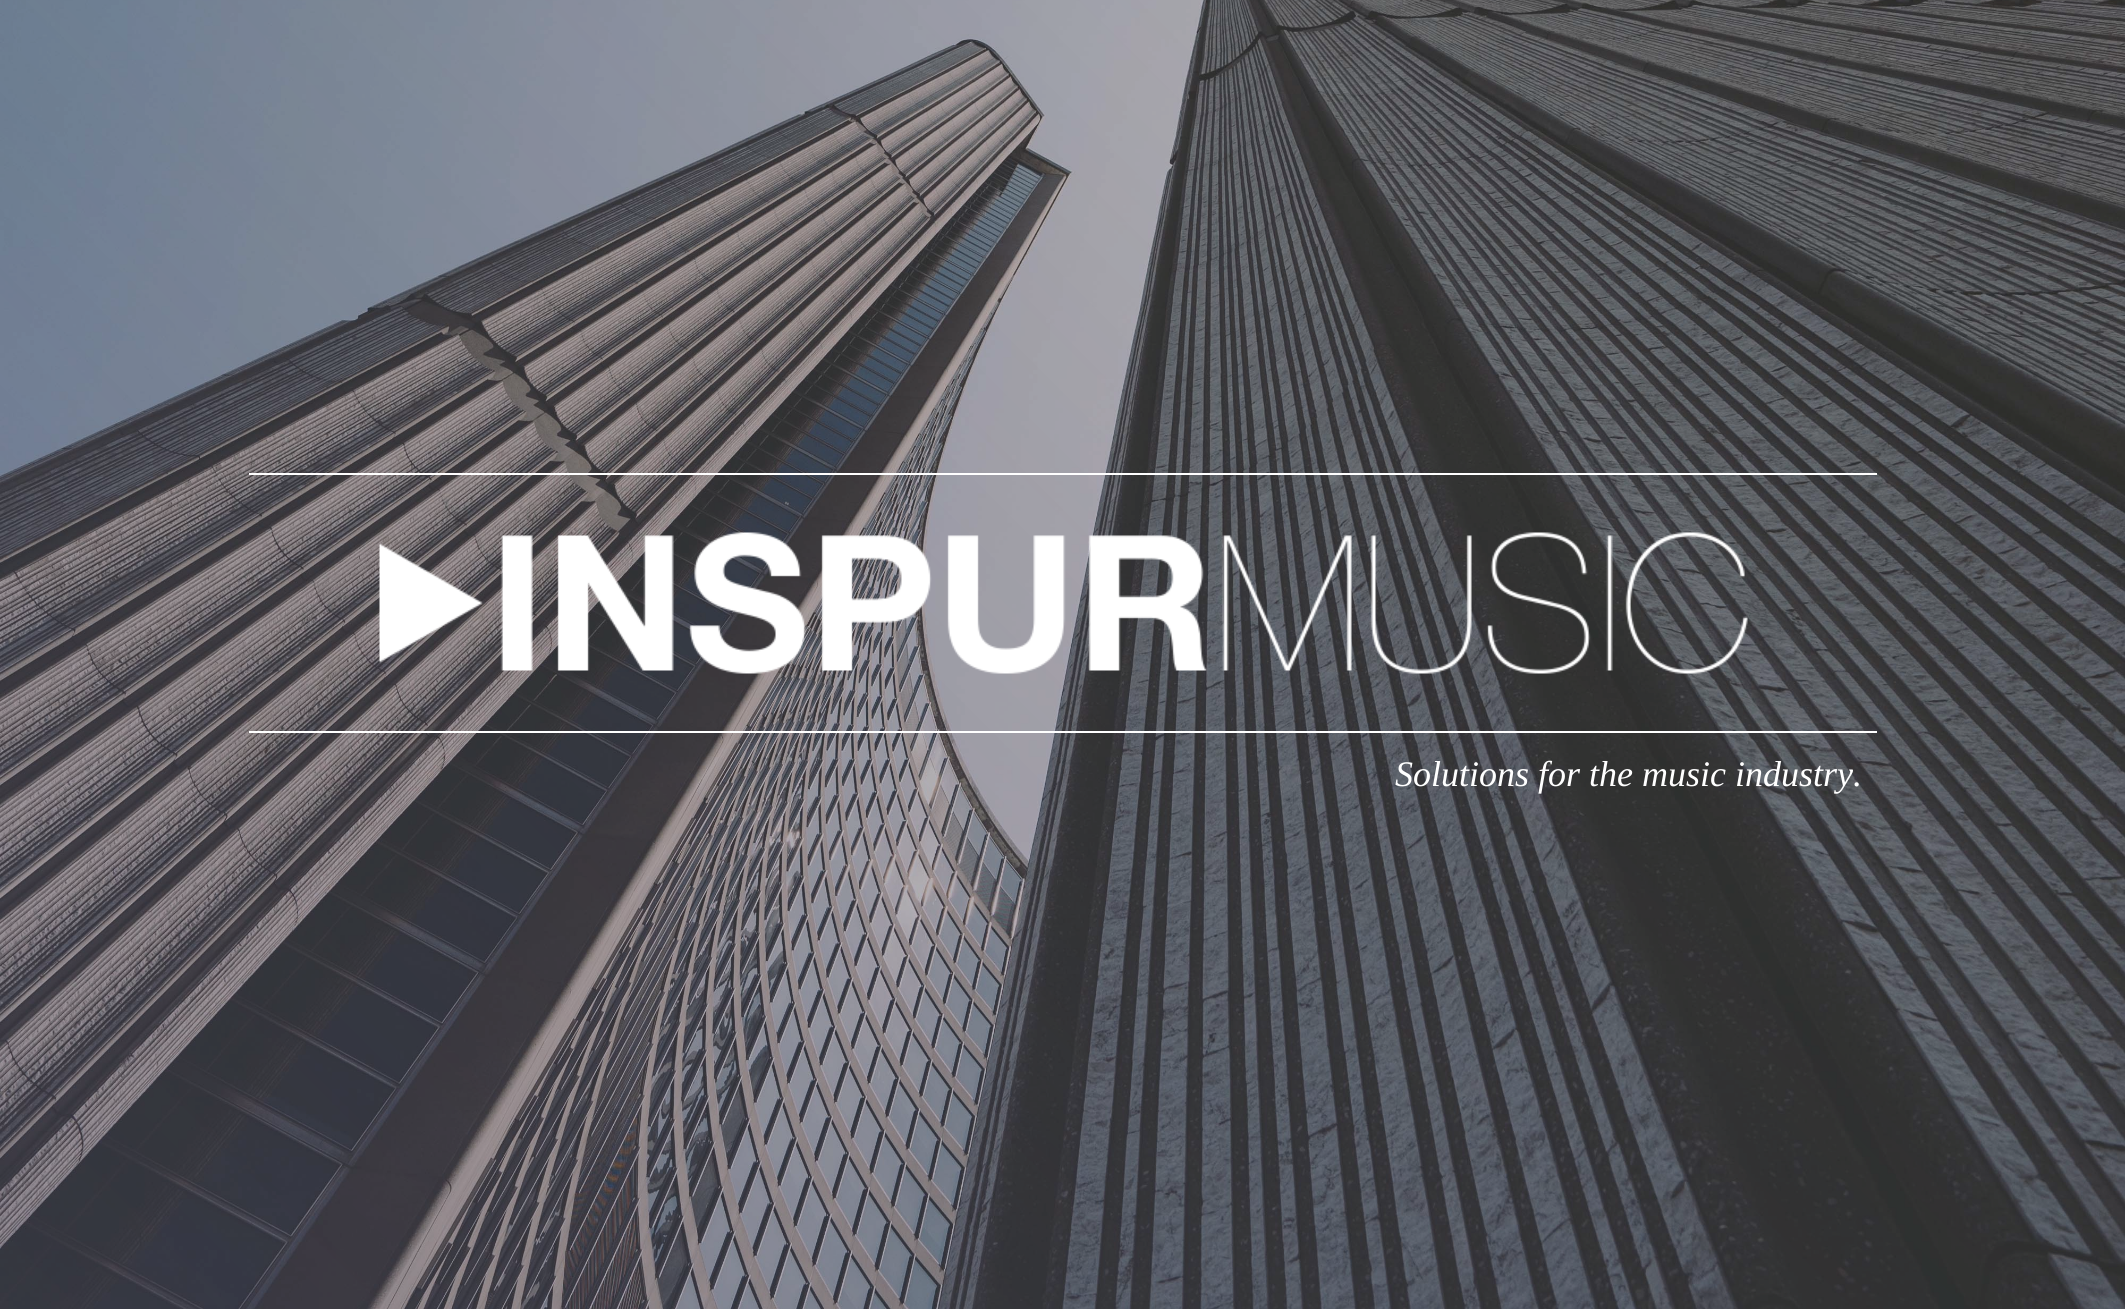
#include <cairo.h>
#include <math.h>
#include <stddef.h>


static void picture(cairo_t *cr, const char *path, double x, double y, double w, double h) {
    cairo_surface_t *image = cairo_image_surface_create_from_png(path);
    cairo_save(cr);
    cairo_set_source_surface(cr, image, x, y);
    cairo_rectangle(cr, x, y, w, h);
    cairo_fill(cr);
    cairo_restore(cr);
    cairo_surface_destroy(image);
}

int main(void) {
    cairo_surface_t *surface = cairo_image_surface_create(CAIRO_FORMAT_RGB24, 2125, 1309);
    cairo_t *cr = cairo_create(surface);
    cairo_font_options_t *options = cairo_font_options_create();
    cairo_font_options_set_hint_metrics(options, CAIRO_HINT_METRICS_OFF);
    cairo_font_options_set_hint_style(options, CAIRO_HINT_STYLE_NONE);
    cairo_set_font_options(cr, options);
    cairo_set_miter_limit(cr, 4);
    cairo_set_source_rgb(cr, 1, 1, 1);
    cairo_paint(cr);
    picture(cr, "img1.png", 0, 0, 2125, 1309);
    cairo_set_source_rgb(cr, 1, 1, 1);
    cairo_rectangle(cr, 249, 473, 1628, 2);
    cairo_fill(cr);
    picture(cr, "img2.png", 379, 532, 1369, 142);
    cairo_rectangle(cr, 249, 731, 1628, 2);
    cairo_fill(cr);
    cairo_select_font_face(cr, "Liberation Serif", CAIRO_FONT_SLANT_ITALIC, CAIRO_FONT_WEIGHT_NORMAL);
    cairo_set_font_size(cr, 36);
    cairo_move_to(cr, 1395, 786);
    cairo_show_text(cr, "Solutions for the music industry.");
    cairo_surface_write_to_png(surface, "page.png");
    cairo_font_options_destroy(options);
    cairo_destroy(cr);
    cairo_surface_destroy(surface);
    return 0;
}
